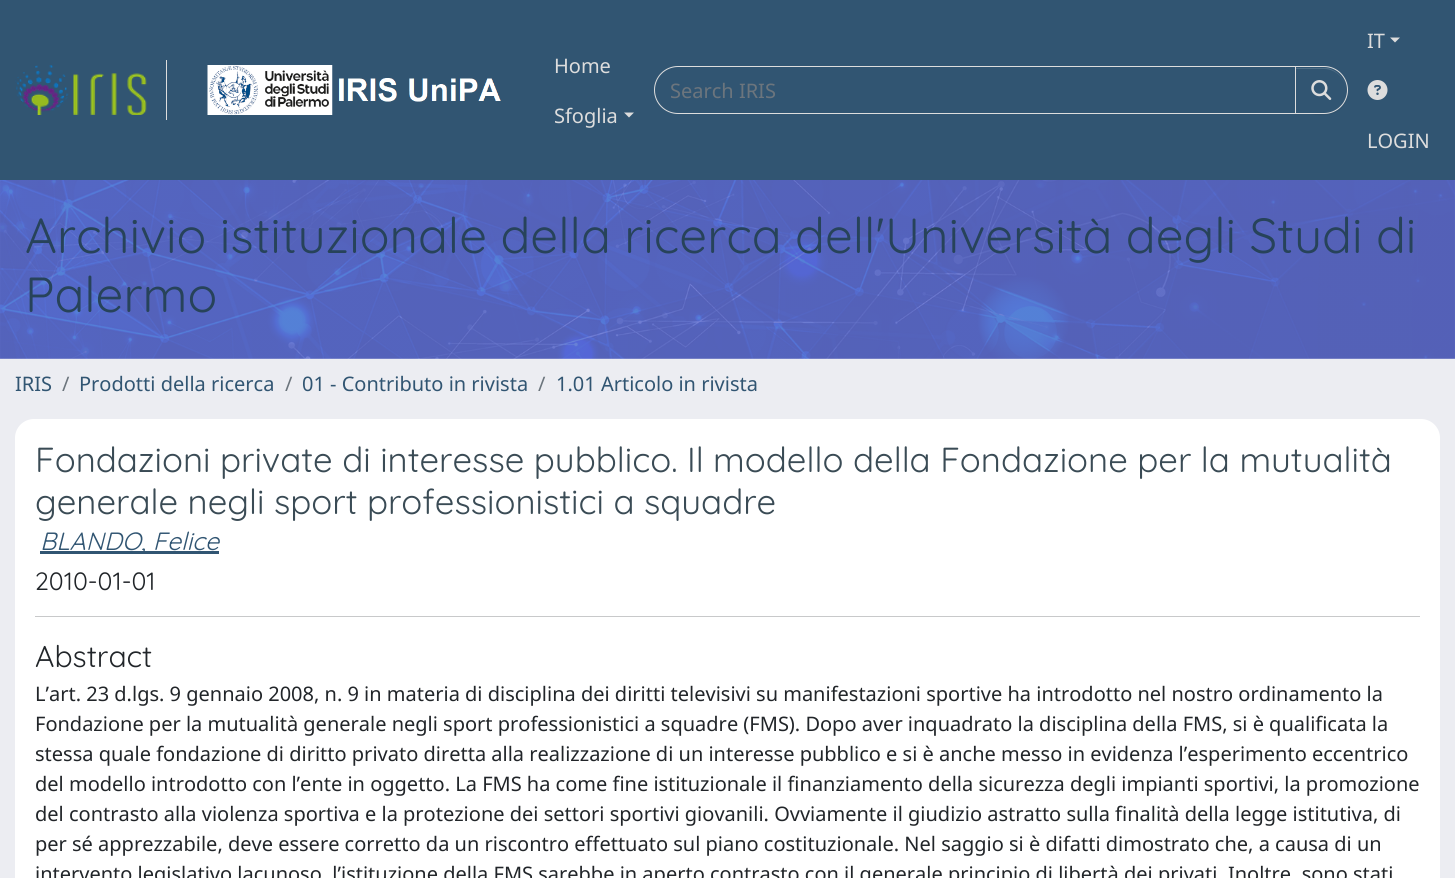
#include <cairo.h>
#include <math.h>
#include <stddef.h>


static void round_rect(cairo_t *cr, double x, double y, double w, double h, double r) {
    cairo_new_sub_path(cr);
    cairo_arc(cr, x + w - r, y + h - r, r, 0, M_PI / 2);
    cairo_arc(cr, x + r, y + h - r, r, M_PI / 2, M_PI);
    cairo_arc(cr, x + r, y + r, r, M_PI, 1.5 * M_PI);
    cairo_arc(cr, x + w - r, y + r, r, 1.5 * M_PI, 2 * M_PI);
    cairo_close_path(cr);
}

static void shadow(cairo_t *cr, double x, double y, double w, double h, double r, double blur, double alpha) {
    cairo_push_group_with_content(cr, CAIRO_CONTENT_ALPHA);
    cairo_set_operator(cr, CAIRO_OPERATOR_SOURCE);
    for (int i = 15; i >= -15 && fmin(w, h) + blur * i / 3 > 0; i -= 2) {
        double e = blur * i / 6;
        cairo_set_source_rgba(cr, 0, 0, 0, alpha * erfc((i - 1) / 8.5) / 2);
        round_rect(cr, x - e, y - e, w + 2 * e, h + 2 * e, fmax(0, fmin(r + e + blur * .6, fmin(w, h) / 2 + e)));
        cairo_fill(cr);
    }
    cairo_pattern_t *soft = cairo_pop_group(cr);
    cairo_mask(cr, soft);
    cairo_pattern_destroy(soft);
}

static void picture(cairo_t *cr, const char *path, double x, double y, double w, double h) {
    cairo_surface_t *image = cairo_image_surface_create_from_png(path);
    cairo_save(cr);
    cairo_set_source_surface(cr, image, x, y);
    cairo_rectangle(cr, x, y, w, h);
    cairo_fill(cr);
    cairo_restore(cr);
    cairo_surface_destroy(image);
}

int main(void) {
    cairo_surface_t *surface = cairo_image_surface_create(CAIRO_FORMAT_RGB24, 1455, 878);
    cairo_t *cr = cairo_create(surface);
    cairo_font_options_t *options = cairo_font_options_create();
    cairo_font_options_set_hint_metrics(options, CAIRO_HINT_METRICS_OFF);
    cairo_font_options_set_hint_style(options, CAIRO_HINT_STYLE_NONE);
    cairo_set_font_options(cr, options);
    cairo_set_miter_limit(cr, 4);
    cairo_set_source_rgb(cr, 0.925, 0.929, 0.949);
    cairo_paint(cr);
    cairo_set_source_rgb(cr, 0.192, 0.333, 0.447);
    cairo_rectangle(cr, 0, 0, 1455, 180);
    cairo_fill(cr);
    cairo_set_source_rgb(cr, 0.867, 0.867, 0.867);
    cairo_rectangle(cr, 166, 60, 1, 60);
    cairo_fill(cr);
    picture(cr, "img1.png", 15, 65, 132, 50);
    picture(cr, "img2.png", 207, 65, 294, 50);
    cairo_select_font_face(cr, "Noto Sans", CAIRO_FONT_SLANT_NORMAL, CAIRO_FONT_WEIGHT_NORMAL);
    cairo_set_font_size(cr, 20);
    cairo_move_to(cr, 554, 73);
    cairo_show_text(cr, "Home");
    cairo_move_to(cr, 554, 123);
    cairo_show_text(cr, "Sfoglia");
    cairo_new_path(cr);
    cairo_move_to(cr, 624, 112.5);
    cairo_line_to(cr, 634, 112.5);
    cairo_line_to(cr, 629, 117.5);
    cairo_close_path(cr);
    cairo_fill(cr);
    cairo_new_path(cr);
    cairo_move_to(cr, 678, 66.5);
    cairo_line_to(cr, 1295.5, 66.5);
    cairo_line_to(cr, 1295.5, 113.5);
    cairo_line_to(cr, 678, 113.5);
    cairo_curve_to(cr, 665, 113.5, 654.5, 103, 654.5, 90);
    cairo_curve_to(cr, 654.5, 77, 665, 66.5, 678, 66.5);
    cairo_close_path(cr);
    cairo_set_line_width(cr, 1);
    cairo_stroke(cr);
    cairo_set_source_rgb(cr, 0.424, 0.459, 0.49);
    cairo_move_to(cr, 670, 98);
    cairo_show_text(cr, "Search IRIS");
    cairo_set_source_rgb(cr, 0, 0, 0);
    shadow(cr, 1295, 68, 53, 47, 23.5, 0.5, 0.07);
    cairo_set_source_rgb(cr, 0.192, 0.333, 0.447);
    cairo_new_path(cr);
    cairo_move_to(cr, 1295, 66);
    cairo_line_to(cr, 1324, 66);
    cairo_curve_to(cr, 1337.5, 66, 1348, 76.5, 1348, 90);
    cairo_curve_to(cr, 1348, 103.5, 1337.5, 114, 1324, 114);
    cairo_line_to(cr, 1295, 114);
    cairo_close_path(cr);
    cairo_fill(cr);
    cairo_set_source_rgb(cr, 0.314, 0.435, 0.529);
    cairo_new_path(cr);
    cairo_move_to(cr, 1296, 69);
    cairo_line_to(cr, 1324, 69);
    cairo_curve_to(cr, 1336, 69, 1346, 79, 1346, 91);
    cairo_curve_to(cr, 1346, 80, 1338, 71, 1328, 68);
    cairo_line_to(cr, 1296, 68);
    cairo_close_path(cr);
    cairo_fill(cr);
    cairo_new_path(cr);
    cairo_move_to(cr, 1295.5, 66.5);
    cairo_line_to(cr, 1324, 66.5);
    cairo_curve_to(cr, 1337, 66.5, 1347.5, 77, 1347.5, 90);
    cairo_curve_to(cr, 1347.5, 103, 1337, 113.5, 1324, 113.5);
    cairo_line_to(cr, 1295.5, 113.5);
    cairo_close_path(cr);
    cairo_set_source_rgb(cr, 0.867, 0.867, 0.867);
    cairo_stroke(cr);
    picture(cr, "img3.png", 1311, 80, 21, 20);
    cairo_move_to(cr, 1367, 48);
    cairo_show_text(cr, "IT");
    cairo_new_path(cr);
    cairo_move_to(cr, 1390, 37.5);
    cairo_line_to(cr, 1400, 37.5);
    cairo_line_to(cr, 1395, 42.5);
    cairo_close_path(cr);
    cairo_fill(cr);
    picture(cr, "img4.png", 1367, 80, 21, 20);
    cairo_move_to(cr, 1367, 148);
    cairo_show_text(cr, "LOGIN");
    picture(cr, "img5.png", 0, 180, 1455, 179);
    cairo_select_font_face(cr, "Quicksand Light", CAIRO_FONT_SLANT_NORMAL, CAIRO_FONT_WEIGHT_NORMAL);
    cairo_set_font_size(cr, 49.3);
    cairo_set_source_rgb(cr, 0.153, 0.263, 0.353);
    cairo_move_to(cr, 25, 253);
    cairo_show_text(cr, "Archivio istituzionale della ricerca dell'Università degli Studi di");
    cairo_move_to(cr, 25, 312);
    cairo_show_text(cr, "Palermo");
    cairo_select_font_face(cr, "Noto Sans", CAIRO_FONT_SLANT_NORMAL, CAIRO_FONT_WEIGHT_NORMAL);
    cairo_set_font_size(cr, 20);
    cairo_set_source_rgb(cr, 0.192, 0.333, 0.447);
    cairo_move_to(cr, 15, 391);
    cairo_show_text(cr, "IRIS");
    cairo_set_source_rgb(cr, 0.424, 0.459, 0.49);
    cairo_move_to(cr, 62, 391);
    cairo_show_text(cr, "/");
    cairo_set_source_rgb(cr, 0.192, 0.333, 0.447);
    cairo_move_to(cr, 79, 391);
    cairo_show_text(cr, "Prodotti della ricerca");
    cairo_set_source_rgb(cr, 0.424, 0.459, 0.49);
    cairo_move_to(cr, 285, 391);
    cairo_show_text(cr, "/");
    cairo_set_source_rgb(cr, 0.192, 0.333, 0.447);
    cairo_move_to(cr, 302, 391);
    cairo_show_text(cr, "01 - Contributo in rivista");
    cairo_set_source_rgb(cr, 0.424, 0.459, 0.49);
    cairo_move_to(cr, 538, 391);
    cairo_show_text(cr, "/");
    cairo_set_source_rgb(cr, 0.192, 0.333, 0.447);
    cairo_move_to(cr, 556, 391);
    cairo_show_text(cr, "1.01 Articolo in rivista");
    cairo_set_source_rgb(cr, 1, 1, 1);
    round_rect(cr, 15, 419, 1425, 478, 19);
    cairo_fill(cr);
    cairo_select_font_face(cr, "Quicksand Light", CAIRO_FONT_SLANT_NORMAL, CAIRO_FONT_WEIGHT_NORMAL);
    cairo_set_font_size(cr, 34.75);
    cairo_set_source_rgb(cr, 0.227, 0.294, 0.333);
    cairo_move_to(cr, 35, 472);
    cairo_show_text(cr, "Fondazioni private di interesse pubblico. Il modello della Fondazione per la mutualità");
    cairo_move_to(cr, 35, 514);
    cairo_show_text(cr, "generale negli sport professionistici a squadre");
    cairo_set_source_rgb(cr, 0.192, 0.333, 0.447);
    cairo_rectangle(cr, 40, 551, 179, 3);
    cairo_fill(cr);
    cairo_select_font_face(cr, "Quicksand Light", CAIRO_FONT_SLANT_ITALIC, CAIRO_FONT_WEIGHT_NORMAL);
    cairo_set_font_size(cr, 25);
    cairo_move_to(cr, 40, 550);
    cairo_show_text(cr, "BLANDO, Felice");
    cairo_select_font_face(cr, "Quicksand Light", CAIRO_FONT_SLANT_NORMAL, CAIRO_FONT_WEIGHT_NORMAL);
    cairo_set_source_rgb(cr, 0.129, 0.145, 0.161);
    cairo_move_to(cr, 35, 590);
    cairo_show_text(cr, "2010-01-01");
    cairo_set_source_rgb(cr, 0.784, 0.788, 0.792);
    cairo_rectangle(cr, 35, 616, 1385, 1);
    cairo_fill(cr);
    cairo_set_font_size(cr, 30);
    cairo_set_source_rgb(cr, 0.129, 0.145, 0.161);
    cairo_move_to(cr, 35, 667);
    cairo_show_text(cr, "Abstract");
    cairo_select_font_face(cr, "Noto Sans", CAIRO_FONT_SLANT_NORMAL, CAIRO_FONT_WEIGHT_NORMAL);
    cairo_set_font_size(cr, 20);
    cairo_move_to(cr, 35, 701);
    cairo_show_text(cr, "L’art. 23 d.lgs. 9 gennaio 2008, n. 9 in materia di disciplina dei diritti televisivi su manifestazioni sportive ha introdotto nel nostro ordinamento la");
    cairo_move_to(cr, 35, 731);
    cairo_show_text(cr, "Fondazione per la mutualità generale negli sport professionistici a squadre (FMS). Dopo aver inquadrato la disciplina della FMS, si è qualificata la");
    cairo_move_to(cr, 35, 761);
    cairo_show_text(cr, "stessa quale fondazione di diritto privato diretta alla realizzazione di un interesse pubblico e si è anche messo in evidenza l’esperimento eccentrico");
    cairo_move_to(cr, 35, 791);
    cairo_show_text(cr, "del modello introdotto con l’ente in oggetto. La FMS ha come fine istituzionale il finanziamento della sicurezza degli impianti sportivi, la promozione");
    cairo_move_to(cr, 35, 821);
    cairo_show_text(cr, "del contrasto alla violenza sportiva e la protezione dei settori sportivi giovanili. Ovviamente il giudizio astratto sulla finalità della legge istitutiva, di");
    cairo_move_to(cr, 35, 851);
    cairo_show_text(cr, "per sé apprezzabile, deve essere corretto da un riscontro effettuato sul piano costituzionale. Nel saggio si è difatti dimostrato che, a causa di un");
    cairo_move_to(cr, 35, 881);
    cairo_show_text(cr, "intervento legislativo lacunoso, l’istituzione della FMS sarebbe in aperto contrasto con il generale principio di libertà dei privati. Inoltre, sono stati");
    cairo_surface_write_to_png(surface, "page.png");
    cairo_font_options_destroy(options);
    cairo_destroy(cr);
    cairo_surface_destroy(surface);
    return 0;
}
